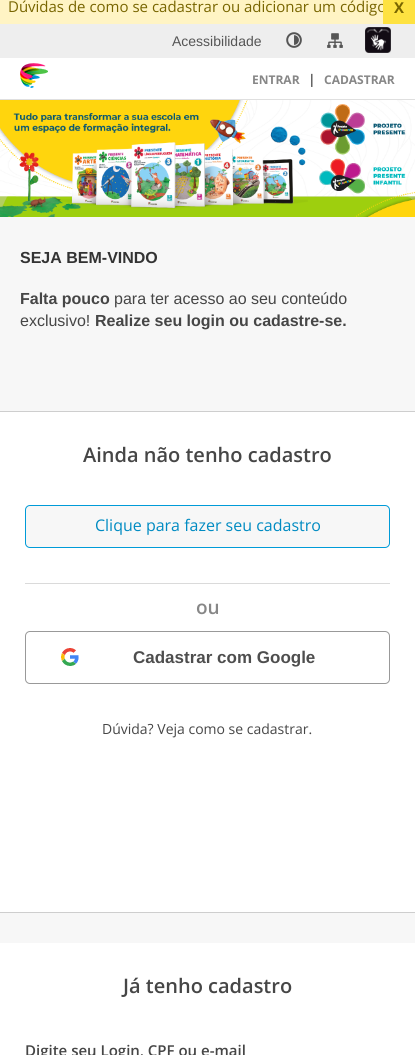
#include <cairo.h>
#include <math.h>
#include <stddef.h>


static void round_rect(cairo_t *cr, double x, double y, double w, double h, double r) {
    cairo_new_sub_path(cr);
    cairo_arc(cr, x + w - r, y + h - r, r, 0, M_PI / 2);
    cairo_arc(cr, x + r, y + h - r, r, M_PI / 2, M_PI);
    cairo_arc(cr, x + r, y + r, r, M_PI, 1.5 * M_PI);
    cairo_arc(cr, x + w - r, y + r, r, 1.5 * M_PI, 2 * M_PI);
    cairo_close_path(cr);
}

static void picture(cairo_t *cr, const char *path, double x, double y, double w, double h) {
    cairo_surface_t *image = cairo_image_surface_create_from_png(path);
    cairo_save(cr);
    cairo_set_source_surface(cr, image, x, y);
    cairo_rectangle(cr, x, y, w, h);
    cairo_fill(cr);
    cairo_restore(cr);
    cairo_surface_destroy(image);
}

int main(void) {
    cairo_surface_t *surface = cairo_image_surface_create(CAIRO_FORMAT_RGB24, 415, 1055);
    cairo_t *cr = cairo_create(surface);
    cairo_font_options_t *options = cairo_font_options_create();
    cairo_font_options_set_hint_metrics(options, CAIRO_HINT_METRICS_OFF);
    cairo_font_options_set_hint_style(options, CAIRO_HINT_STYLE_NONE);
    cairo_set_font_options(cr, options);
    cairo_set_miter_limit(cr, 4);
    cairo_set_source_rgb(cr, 0.965, 0.965, 0.965);
    cairo_paint(cr);
    cairo_set_source_rgb(cr, 1, 0.957, 0.769);
    cairo_rectangle(cr, 0, 0, 383, 24);
    cairo_fill(cr);
    cairo_select_font_face(cr, "Open Sans", CAIRO_FONT_SLANT_NORMAL, CAIRO_FONT_WEIGHT_NORMAL);
    cairo_set_font_size(cr, 15);
    cairo_set_source_rgb(cr, 0.471, 0.396, 0);
    cairo_move_to(cr, 8, 12);
    cairo_show_text(cr, "Dúvidas de como se cadastrar ou adicionar um código");
    cairo_set_source_rgb(cr, 0.996, 0.886, 0.255);
    cairo_rectangle(cr, 383, 0, 32, 24);
    cairo_fill(cr);
    cairo_select_font_face(cr, "Open Sans", CAIRO_FONT_SLANT_NORMAL, CAIRO_FONT_WEIGHT_BOLD);
    cairo_set_source_rgb(cr, 0.471, 0.396, 0);
    cairo_move_to(cr, 394, 13);
    cairo_show_text(cr, "X");
    cairo_set_source_rgb(cr, 0.933, 0.933, 0.933);
    cairo_rectangle(cr, 0, 24, 415, 34);
    cairo_fill(cr);
    cairo_select_font_face(cr, "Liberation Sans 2", CAIRO_FONT_SLANT_NORMAL, CAIRO_FONT_WEIGHT_NORMAL);
    cairo_set_font_size(cr, 14);
    cairo_set_source_rgb(cr, 0.333, 0.333, 0.333);
    cairo_move_to(cr, 172, 46);
    cairo_show_text(cr, "Acessibilidade");
    picture(cr, "img1.png", 286, 32, 16, 16);
    picture(cr, "img2.png", 327, 33, 16, 15);
    picture(cr, "img3.png", 365, 27, 26, 26);
    cairo_set_source_rgb(cr, 1, 1, 1);
    cairo_rectangle(cr, 0, 58, 415, 41);
    cairo_fill(cr);
    cairo_set_source_rgb(cr, 0.875, 0.875, 0.875);
    cairo_rectangle(cr, 0, 99, 415, 1);
    cairo_fill(cr);
    picture(cr, "img4.png", 20, 63, 28, 25);
    cairo_select_font_face(cr, "Open Sans", CAIRO_FONT_SLANT_NORMAL, CAIRO_FONT_WEIGHT_BOLD);
    cairo_set_font_size(cr, 12);
    cairo_set_source_rgb(cr, 0.529, 0.529, 0.529);
    cairo_move_to(cr, 252, 84);
    cairo_show_text(cr, "ENTRAR");
    cairo_select_font_face(cr, "Liberation Sans", CAIRO_FONT_SLANT_NORMAL, CAIRO_FONT_WEIGHT_NORMAL);
    cairo_set_font_size(cr, 14);
    cairo_set_source_rgb(cr, 0.2, 0.2, 0.2);
    cairo_move_to(cr, 310, 84);
    cairo_show_text(cr, "|");
    cairo_select_font_face(cr, "Open Sans", CAIRO_FONT_SLANT_NORMAL, CAIRO_FONT_WEIGHT_BOLD);
    cairo_set_font_size(cr, 12);
    cairo_set_source_rgb(cr, 0.529, 0.529, 0.529);
    cairo_move_to(cr, 324, 84);
    cairo_show_text(cr, "CADASTRAR");
    picture(cr, "img5.png", 0, 100, 415, 117);
    cairo_select_font_face(cr, "Liberation Sans", CAIRO_FONT_SLANT_NORMAL, CAIRO_FONT_WEIGHT_BOLD);
    cairo_set_font_size(cr, 16);
    cairo_set_source_rgb(cr, 0.2, 0.2, 0.2);
    cairo_move_to(cr, 20, 263);
    cairo_show_text(cr, "SEJA BEM-VINDO");
    cairo_set_source_rgb(cr, 0.275, 0.275, 0.275);
    cairo_move_to(cr, 20, 304);
    cairo_show_text(cr, "Falta pouco");
    cairo_select_font_face(cr, "Liberation Sans", CAIRO_FONT_SLANT_NORMAL, CAIRO_FONT_WEIGHT_NORMAL);
    cairo_move_to(cr, 114, 304);
    cairo_show_text(cr, "para ter acesso ao seu conteúdo");
    cairo_move_to(cr, 20, 326);
    cairo_show_text(cr, "exclusivo!");
    cairo_select_font_face(cr, "Liberation Sans", CAIRO_FONT_SLANT_NORMAL, CAIRO_FONT_WEIGHT_BOLD);
    cairo_move_to(cr, 95, 326);
    cairo_show_text(cr, "Realize seu login ou cadastre-se.");
    cairo_set_source_rgb(cr, 1, 1, 1);
    cairo_rectangle(cr, 0, 412, 415, 500);
    cairo_fill(cr);
    cairo_set_source_rgb(cr, 0.808, 0.808, 0.808);
    cairo_rectangle(cr, 0, 411, 415, 1);
    cairo_fill(cr);
    cairo_rectangle(cr, 0, 912, 415, 1);
    cairo_fill(cr);
    cairo_select_font_face(cr, "Open Sans SemiBold", CAIRO_FONT_SLANT_NORMAL, CAIRO_FONT_WEIGHT_NORMAL);
    cairo_set_font_size(cr, 20);
    cairo_set_source_rgb(cr, 0.275, 0.275, 0.275);
    cairo_move_to(cr, 83, 462);
    cairo_show_text(cr, "Ainda não tenho cadastro");
    cairo_set_source_rgb(cr, 0.965, 0.965, 0.965);
    round_rect(cr, 25.5, 505.5, 364, 42, 4.5);
    cairo_fill_preserve(cr);
    cairo_set_source_rgb(cr, 0, 0.608, 0.847);
    cairo_set_line_width(cr, 1);
    cairo_stroke(cr);
    cairo_select_font_face(cr, "Open Sans", CAIRO_FONT_SLANT_NORMAL, CAIRO_FONT_WEIGHT_NORMAL);
    cairo_set_font_size(cr, 16);
    cairo_set_source_rgb(cr, 0, 0.545, 0.761);
    cairo_move_to(cr, 95, 531);
    cairo_show_text(cr, "Clique para fazer seu cadastro");
    cairo_set_source_rgb(cr, 0.855, 0.855, 0.855);
    cairo_rectangle(cr, 25, 583, 365, 1);
    cairo_fill(cr);
    cairo_select_font_face(cr, "Open Sans SemiBold", CAIRO_FONT_SLANT_NORMAL, CAIRO_FONT_WEIGHT_NORMAL);
    cairo_set_font_size(cr, 19);
    cairo_set_source_rgb(cr, 0.529, 0.529, 0.529);
    cairo_move_to(cr, 196, 614);
    cairo_show_text(cr, "ou");
    picture(cr, "img6.png", 61, 648, 18, 18);
    round_rect(cr, 25.5, 631.5, 364, 52, 4.5);
    cairo_set_source_rgb(cr, 0.6, 0.6, 0.6);
    cairo_stroke(cr);
    cairo_select_font_face(cr, "Liberation Sans 2", CAIRO_FONT_SLANT_NORMAL, CAIRO_FONT_WEIGHT_BOLD);
    cairo_set_font_size(cr, 17);
    cairo_set_source_rgb(cr, 0.306, 0.306, 0.306);
    cairo_move_to(cr, 133, 663);
    cairo_show_text(cr, "Cadastrar com Google");
    cairo_select_font_face(cr, "Open Sans", CAIRO_FONT_SLANT_NORMAL, CAIRO_FONT_WEIGHT_NORMAL);
    cairo_set_font_size(cr, 14);
    cairo_set_source_rgb(cr, 0.275, 0.275, 0.275);
    cairo_move_to(cr, 102, 734);
    cairo_show_text(cr, "Dúvida? Veja como se cadastrar.");
    cairo_set_source_rgb(cr, 1, 1, 1);
    cairo_rectangle(cr, 0, 943, 415, 112);
    cairo_fill(cr);
    cairo_select_font_face(cr, "Open Sans SemiBold", CAIRO_FONT_SLANT_NORMAL, CAIRO_FONT_WEIGHT_NORMAL);
    cairo_set_font_size(cr, 20);
    cairo_set_source_rgb(cr, 0.275, 0.275, 0.275);
    cairo_move_to(cr, 123, 993);
    cairo_show_text(cr, "Já tenho cadastro");
    cairo_set_font_size(cr, 15);
    cairo_move_to(cr, 25, 1056);
    cairo_show_text(cr, "Digite seu Login, CPF ou e-mail");
    cairo_surface_write_to_png(surface, "page.png");
    cairo_font_options_destroy(options);
    cairo_destroy(cr);
    cairo_surface_destroy(surface);
    return 0;
}
